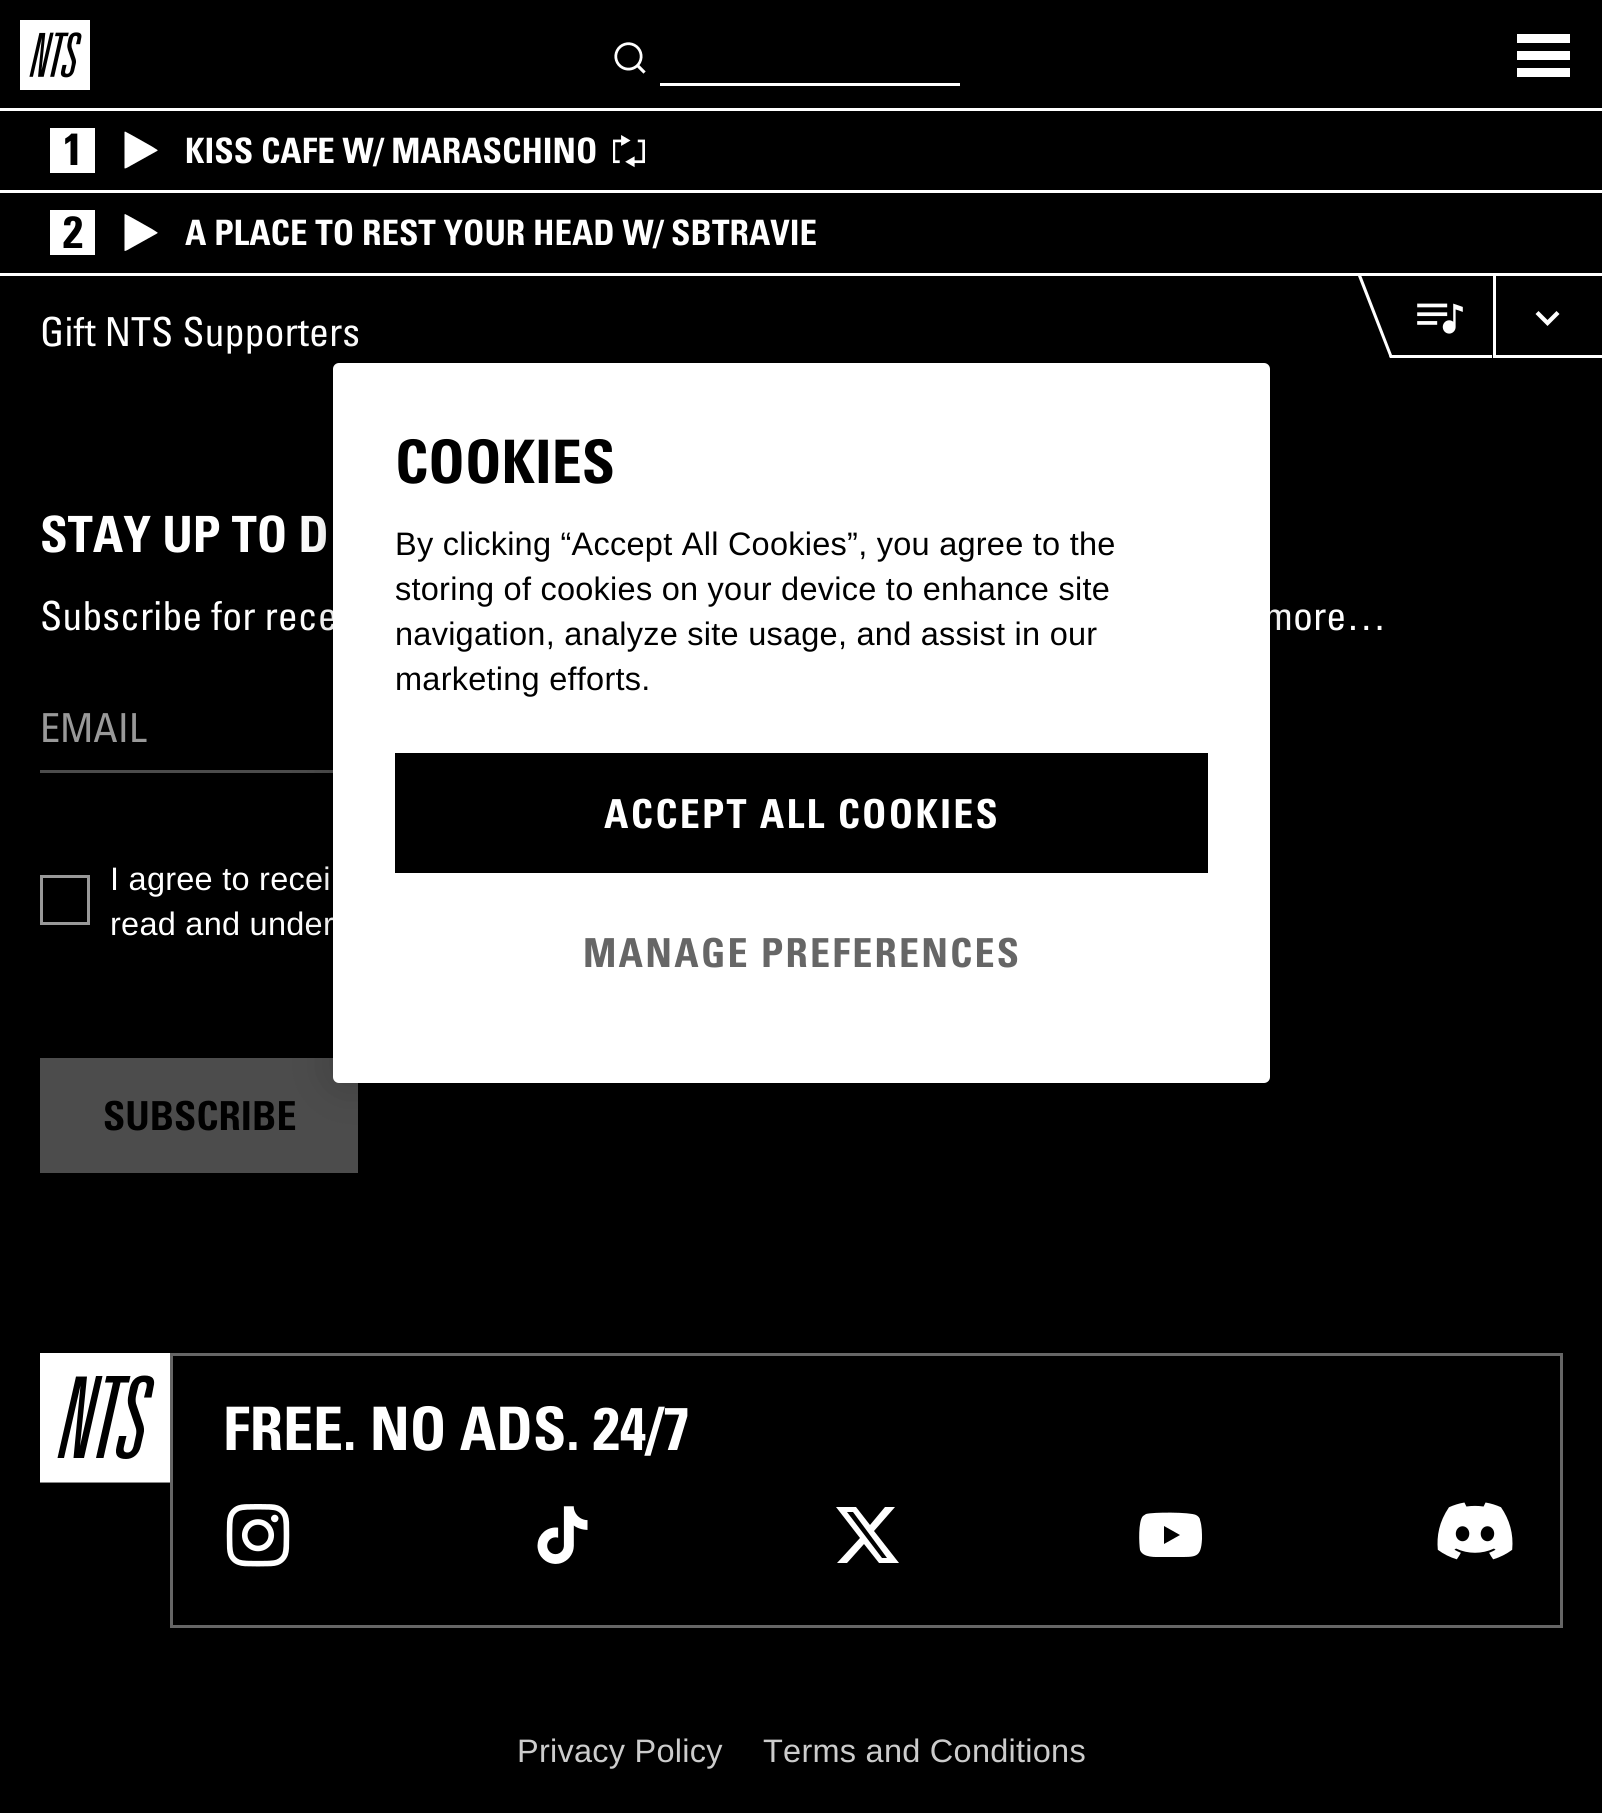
#include <cairo.h>
#include <math.h>
#include <stddef.h>


static void spaced_text(cairo_t *cr, double x, double y, const char *s, double letter, double word) {
    cairo_move_to(cr, x, y);
    while (*s) {
        char ch[5] = {0};
        int n = 0;
        do ch[n++] = *s++; while ((*s & 0xC0) == 0x80);
        cairo_show_text(cr, ch);
        cairo_rel_move_to(cr, letter + word * (*ch == ' '), 0);
    }
}

static void round_rect(cairo_t *cr, double x, double y, double w, double h, double r) {
    cairo_new_sub_path(cr);
    cairo_arc(cr, x + w - r, y + h - r, r, 0, M_PI / 2);
    cairo_arc(cr, x + r, y + h - r, r, M_PI / 2, M_PI);
    cairo_arc(cr, x + r, y + r, r, M_PI, 1.5 * M_PI);
    cairo_arc(cr, x + w - r, y + r, r, 1.5 * M_PI, 2 * M_PI);
    cairo_close_path(cr);
}

static void shadow(cairo_t *cr, double x, double y, double w, double h, double r, double blur, double alpha) {
    cairo_push_group_with_content(cr, CAIRO_CONTENT_ALPHA);
    cairo_set_operator(cr, CAIRO_OPERATOR_SOURCE);
    for (int i = 15; i >= -15 && fmin(w, h) + blur * i / 3 > 0; i -= 2) {
        double e = blur * i / 6;
        cairo_set_source_rgba(cr, 0, 0, 0, alpha * erfc((i - 1) / 8.5) / 2);
        round_rect(cr, x - e, y - e, w + 2 * e, h + 2 * e, fmax(0, fmin(r + e + blur * .6, fmin(w, h) / 2 + e)));
        cairo_fill(cr);
    }
    cairo_pattern_t *soft = cairo_pop_group(cr);
    cairo_mask(cr, soft);
    cairo_pattern_destroy(soft);
}

static void picture(cairo_t *cr, const char *path, double x, double y, double w, double h) {
    cairo_surface_t *image = cairo_image_surface_create_from_png(path);
    cairo_save(cr);
    cairo_set_source_surface(cr, image, x, y);
    cairo_rectangle(cr, x, y, w, h);
    cairo_fill(cr);
    cairo_restore(cr);
    cairo_surface_destroy(image);
}

int main(void) {
    cairo_surface_t *surface = cairo_image_surface_create(CAIRO_FORMAT_RGB24, 1602, 1813);
    cairo_t *cr = cairo_create(surface);
    cairo_font_options_t *options = cairo_font_options_create();
    cairo_font_options_set_hint_metrics(options, CAIRO_HINT_METRICS_OFF);
    cairo_font_options_set_hint_style(options, CAIRO_HINT_STYLE_NONE);
    cairo_set_font_options(cr, options);
    cairo_set_miter_limit(cr, 4);
    cairo_set_source_rgb(cr, 0, 0, 0);
    cairo_paint(cr);
    cairo_set_source_rgb(cr, 1, 1, 1);
    cairo_rectangle(cr, 0, 108, 1602, 3);
    cairo_fill(cr);
    picture(cr, "img1.png", 20, 20, 70, 70);
    picture(cr, "img2.png", 614, 42, 32, 32);
    cairo_rectangle(cr, 660, 83, 300, 3);
    cairo_fill(cr);
    cairo_new_path(cr);
    cairo_move_to(cr, 1517, 34);
    cairo_line_to(cr, 1570, 34);
    cairo_line_to(cr, 1570, 43);
    cairo_line_to(cr, 1517, 43);
    cairo_close_path(cr);
    cairo_move_to(cr, 1517, 51);
    cairo_line_to(cr, 1570, 51);
    cairo_line_to(cr, 1570, 60);
    cairo_line_to(cr, 1517, 60);
    cairo_close_path(cr);
    cairo_move_to(cr, 1517, 68);
    cairo_line_to(cr, 1570, 68);
    cairo_line_to(cr, 1570, 77);
    cairo_line_to(cr, 1517, 77);
    cairo_close_path(cr);
    cairo_fill(cr);
    cairo_new_path(cr);
    cairo_move_to(cr, 1358, 275);
    cairo_line_to(cr, 1492, 275);
    cairo_line_to(cr, 1492, 358);
    cairo_line_to(cr, 1390, 358);
    cairo_line_to(cr, 1358, 276);
    cairo_close_path(cr);
    cairo_fill(cr);
    cairo_set_source_rgb(cr, 0, 0, 0);
    cairo_new_path(cr);
    cairo_move_to(cr, 1392, 355);
    cairo_line_to(cr, 1361, 275);
    cairo_line_to(cr, 1492, 275);
    cairo_line_to(cr, 1492, 355);
    cairo_close_path(cr);
    cairo_fill(cr);
    cairo_set_source_rgb(cr, 1, 1, 1);
    cairo_rectangle(cr, 1493, 355, 109, 3);
    cairo_fill(cr);
    cairo_rectangle(cr, 1493, 275, 3, 83);
    cairo_fill(cr);
    cairo_rectangle(cr, 0, 273, 1602, 3);
    cairo_fill(cr);
    cairo_rectangle(cr, 0, 190, 1602, 3);
    cairo_fill(cr);
    cairo_rectangle(cr, 50, 128, 45, 45);
    cairo_fill(cr);
    cairo_select_font_face(cr, "Univers", CAIRO_FONT_SLANT_NORMAL, CAIRO_FONT_WEIGHT_BOLD);
    cairo_set_font_size(cr, 45);
    cairo_set_source_rgb(cr, 0, 0, 0);
    cairo_move_to(cr, 63, 165);
    cairo_show_text(cr, "1");
    cairo_set_source_rgb(cr, 1, 1, 1);
    cairo_new_path(cr);
    cairo_move_to(cr, 157, 151);
    cairo_line_to(cr, 131, 165.5);
    cairo_curve_to(cr, 126, 168.5, 124.5, 169, 124.5, 168);
    cairo_line_to(cr, 124.5, 132);
    cairo_line_to(cr, 125, 131.5);
    cairo_curve_to(cr, 125.5, 131.5, 149.5, 145, 152, 146.5);
    cairo_line_to(cr, 157.5, 150);
    cairo_curve_to(cr, 158, 150.5, 157.5, 150.5, 157, 151);
    cairo_close_path(cr);
    cairo_fill(cr);
    cairo_set_font_size(cr, 35);
    cairo_move_to(cr, 185, 163);
    cairo_show_text(cr, "KISS CAFE W/ MARASCHINO");
    picture(cr, "img3.png", 613, 135, 32, 33);
    cairo_rectangle(cr, 50, 210, 45, 45);
    cairo_fill(cr);
    cairo_set_font_size(cr, 45);
    cairo_set_source_rgb(cr, 0, 0, 0);
    cairo_move_to(cr, 63, 248);
    cairo_show_text(cr, "2");
    cairo_set_source_rgb(cr, 1, 1, 1);
    cairo_new_path(cr);
    cairo_move_to(cr, 157, 233.5);
    cairo_line_to(cr, 131, 248);
    cairo_curve_to(cr, 126, 251, 124.5, 251.5, 124.5, 250.5);
    cairo_line_to(cr, 124.5, 214.5);
    cairo_line_to(cr, 125, 214);
    cairo_curve_to(cr, 125.5, 214, 149.5, 227.5, 152, 229);
    cairo_line_to(cr, 157.5, 232.5);
    cairo_curve_to(cr, 158, 233, 157.5, 233, 157, 233.5);
    cairo_close_path(cr);
    cairo_fill(cr);
    cairo_set_font_size(cr, 35);
    cairo_move_to(cr, 185, 245);
    cairo_show_text(cr, "A PLACE TO REST YOUR HEAD W/ SBTRAVIE");
    cairo_new_path(cr);
    cairo_move_to(cr, 1492, 355);
    cairo_line_to(cr, 1492, 358);
    cairo_line_to(cr, 1390, 358);
    cairo_line_to(cr, 1389, 355);
    cairo_close_path(cr);
    cairo_fill(cr);
    picture(cr, "img4.png", 1417, 303, 46, 31);
    cairo_new_path(cr);
    cairo_move_to(cr, 1556.5, 311);
    cairo_line_to(cr, 1559.5, 314);
    cairo_line_to(cr, 1547.5, 326);
    cairo_line_to(cr, 1535.5, 314);
    cairo_line_to(cr, 1538.5, 311);
    cairo_line_to(cr, 1547.5, 320);
    cairo_close_path(cr);
    cairo_fill(cr);
    cairo_select_font_face(cr, "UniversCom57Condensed", CAIRO_FONT_SLANT_NORMAL, CAIRO_FONT_WEIGHT_NORMAL);
    cairo_set_font_size(cr, 40);
    cairo_move_to(cr, 40, 346);
    cairo_show_text(cr, "Gift NTS Supporters");
    cairo_select_font_face(cr, "Univers", CAIRO_FONT_SLANT_NORMAL, CAIRO_FONT_WEIGHT_BOLD);
    cairo_set_font_size(cr, 50);
    cairo_move_to(cr, 40, 552);
    cairo_show_text(cr, "STAY UP TO D");
    cairo_select_font_face(cr, "UniversCom57Condensed", CAIRO_FONT_SLANT_NORMAL, CAIRO_FONT_WEIGHT_NORMAL);
    cairo_set_font_size(cr, 40);
    cairo_move_to(cr, 40, 630);
    cairo_show_text(cr, "Subscribe for rece");
    cairo_move_to(cr, 1264, 630);
    cairo_show_text(cr, "more…");
    cairo_set_source_rgb(cr, 0.298, 0.298, 0.298);
    cairo_rectangle(cr, 40, 770, 293, 3);
    cairo_fill(cr);
    cairo_set_source_rgb(cr, 0.6, 0.6, 0.6);
    cairo_move_to(cr, 40, 742);
    cairo_show_text(cr, "EMAIL");
    cairo_rectangle(cr, 41.5, 876.5, 47, 47);
    cairo_set_line_width(cr, 3);
    cairo_stroke(cr);
    cairo_select_font_face(cr, "Liberation Sans", CAIRO_FONT_SLANT_NORMAL, CAIRO_FONT_WEIGHT_NORMAL);
    cairo_set_font_size(cr, 32.5);
    cairo_set_source_rgb(cr, 1, 1, 1);
    spaced_text(cr, 110, 890, "I agree to recei", 0.25, 0);
    spaced_text(cr, 110, 935, "read and under", 0.25, 0);
    cairo_set_source_rgb(cr, 0.298, 0.298, 0.298);
    cairo_rectangle(cr, 40, 1058, 318, 115);
    cairo_fill(cr);
    cairo_select_font_face(cr, "Univers", CAIRO_FONT_SLANT_NORMAL, CAIRO_FONT_WEIGHT_BOLD);
    cairo_set_font_size(cr, 40);
    cairo_set_source_rgb(cr, 0, 0, 0);
    cairo_move_to(cr, 103, 1130);
    cairo_show_text(cr, "SUBSCRIBE");
    picture(cr, "img5.png", 40, 1353, 130, 130);
    cairo_rectangle(cr, 171.5, 1354.5, 1390, 272);
    cairo_set_source_rgb(cr, 0.4, 0.4, 0.4);
    cairo_stroke(cr);
    cairo_set_font_size(cr, 60);
    cairo_set_source_rgb(cr, 1, 1, 1);
    cairo_move_to(cr, 223, 1450);
    cairo_show_text(cr, "FREE. NO ADS. 24/7");
    picture(cr, "img6.png", 226, 1504, 64, 63);
    picture(cr, "img7.png", 537, 1506, 51, 58);
    cairo_new_path(cr);
    cairo_move_to(cr, 885, 1507);
    cairo_line_to(cr, 895, 1507);
    cairo_line_to(cr, 874, 1531);
    cairo_line_to(cr, 899, 1563);
    cairo_line_to(cr, 879, 1563);
    cairo_line_to(cr, 864, 1544);
    cairo_line_to(cr, 847, 1563);
    cairo_line_to(cr, 837, 1563);
    cairo_line_to(cr, 860, 1538);
    cairo_line_to(cr, 836, 1507);
    cairo_line_to(cr, 856, 1507);
    cairo_line_to(cr, 870, 1525);
    cairo_close_path(cr);
    cairo_move_to(cr, 882, 1558);
    cairo_line_to(cr, 887, 1558);
    cairo_line_to(cr, 853, 1512);
    cairo_line_to(cr, 847, 1512);
    cairo_close_path(cr);
    cairo_fill(cr);
    cairo_new_path(cr);
    cairo_move_to(cr, 1200, 1520);
    cairo_curve_to(cr, 1202, 1526, 1202, 1533, 1202, 1539);
    cairo_curve_to(cr, 1201, 1558, 1196, 1557, 1177, 1557);
    cairo_line_to(cr, 1162, 1557);
    cairo_curve_to(cr, 1156, 1557, 1143, 1558, 1140, 1550);
    cairo_curve_to(cr, 1139, 1544, 1138, 1521, 1143, 1516);
    cairo_line_to(cr, 1146, 1514);
    cairo_curve_to(cr, 1153, 1512, 1190, 1512, 1196, 1515);
    cairo_curve_to(cr, 1198, 1516, 1200, 1518, 1200, 1520);
    cairo_close_path(cr);
    cairo_move_to(cr, 1164, 1544);
    cairo_line_to(cr, 1180, 1535);
    cairo_line_to(cr, 1164, 1526);
    cairo_close_path(cr);
    cairo_fill(cr);
    picture(cr, "img8.png", 1437, 1502, 76, 58);
    cairo_select_font_face(cr, "Liberation Sans", CAIRO_FONT_SLANT_NORMAL, CAIRO_FONT_WEIGHT_NORMAL);
    cairo_set_font_size(cr, 32.5);
    cairo_set_source_rgb(cr, 0.8, 0.8, 0.8);
    spaced_text(cr, 517, 1762, "Privacy Policy", 0.25, 0);
    spaced_text(cr, 763, 1762, "Terms and Conditions", 0.25, 0);
    cairo_set_source_rgb(cr, 0, 0, 0);
    shadow(cr, 333, 363, 937, 720, 6, 22.5, 0.2);
    cairo_set_source_rgb(cr, 1, 1, 1);
    round_rect(cr, 333, 363, 937, 720, 6);
    cairo_fill(cr);
    cairo_select_font_face(cr, "Univers", CAIRO_FONT_SLANT_NORMAL, CAIRO_FONT_WEIGHT_BOLD);
    cairo_set_font_size(cr, 60);
    cairo_set_source_rgb(cr, 0, 0, 0);
    cairo_move_to(cr, 395, 483);
    cairo_show_text(cr, "COOKIES");
    cairo_select_font_face(cr, "Liberation Sans", CAIRO_FONT_SLANT_NORMAL, CAIRO_FONT_WEIGHT_NORMAL);
    cairo_set_font_size(cr, 32.5);
    spaced_text(cr, 395, 555, "By clicking “Accept All Cookies”, you agree to the", 0.25, 0);
    spaced_text(cr, 395, 600, "storing of cookies on your device to enhance site", 0.25, 0);
    spaced_text(cr, 395, 645, "navigation, analyze site usage, and assist in our", 0.25, 0);
    spaced_text(cr, 395, 690, "marketing efforts.", 0.25, 0);
    cairo_rectangle(cr, 395, 753, 813, 120);
    cairo_fill(cr);
    cairo_select_font_face(cr, "Univers", CAIRO_FONT_SLANT_NORMAL, CAIRO_FONT_WEIGHT_BOLD);
    cairo_set_font_size(cr, 40);
    cairo_set_source_rgb(cr, 1, 1, 1);
    spaced_text(cr, 604, 828, "ACCEPT ALL COOKIES", 2.25, 0);
    cairo_set_source_rgb(cr, 0.4, 0.4, 0.4);
    spaced_text(cr, 583, 967, "MANAGE PREFERENCES", 2.25, 0);
    cairo_surface_write_to_png(surface, "page.png");
    cairo_font_options_destroy(options);
    cairo_destroy(cr);
    cairo_surface_destroy(surface);
    return 0;
}
